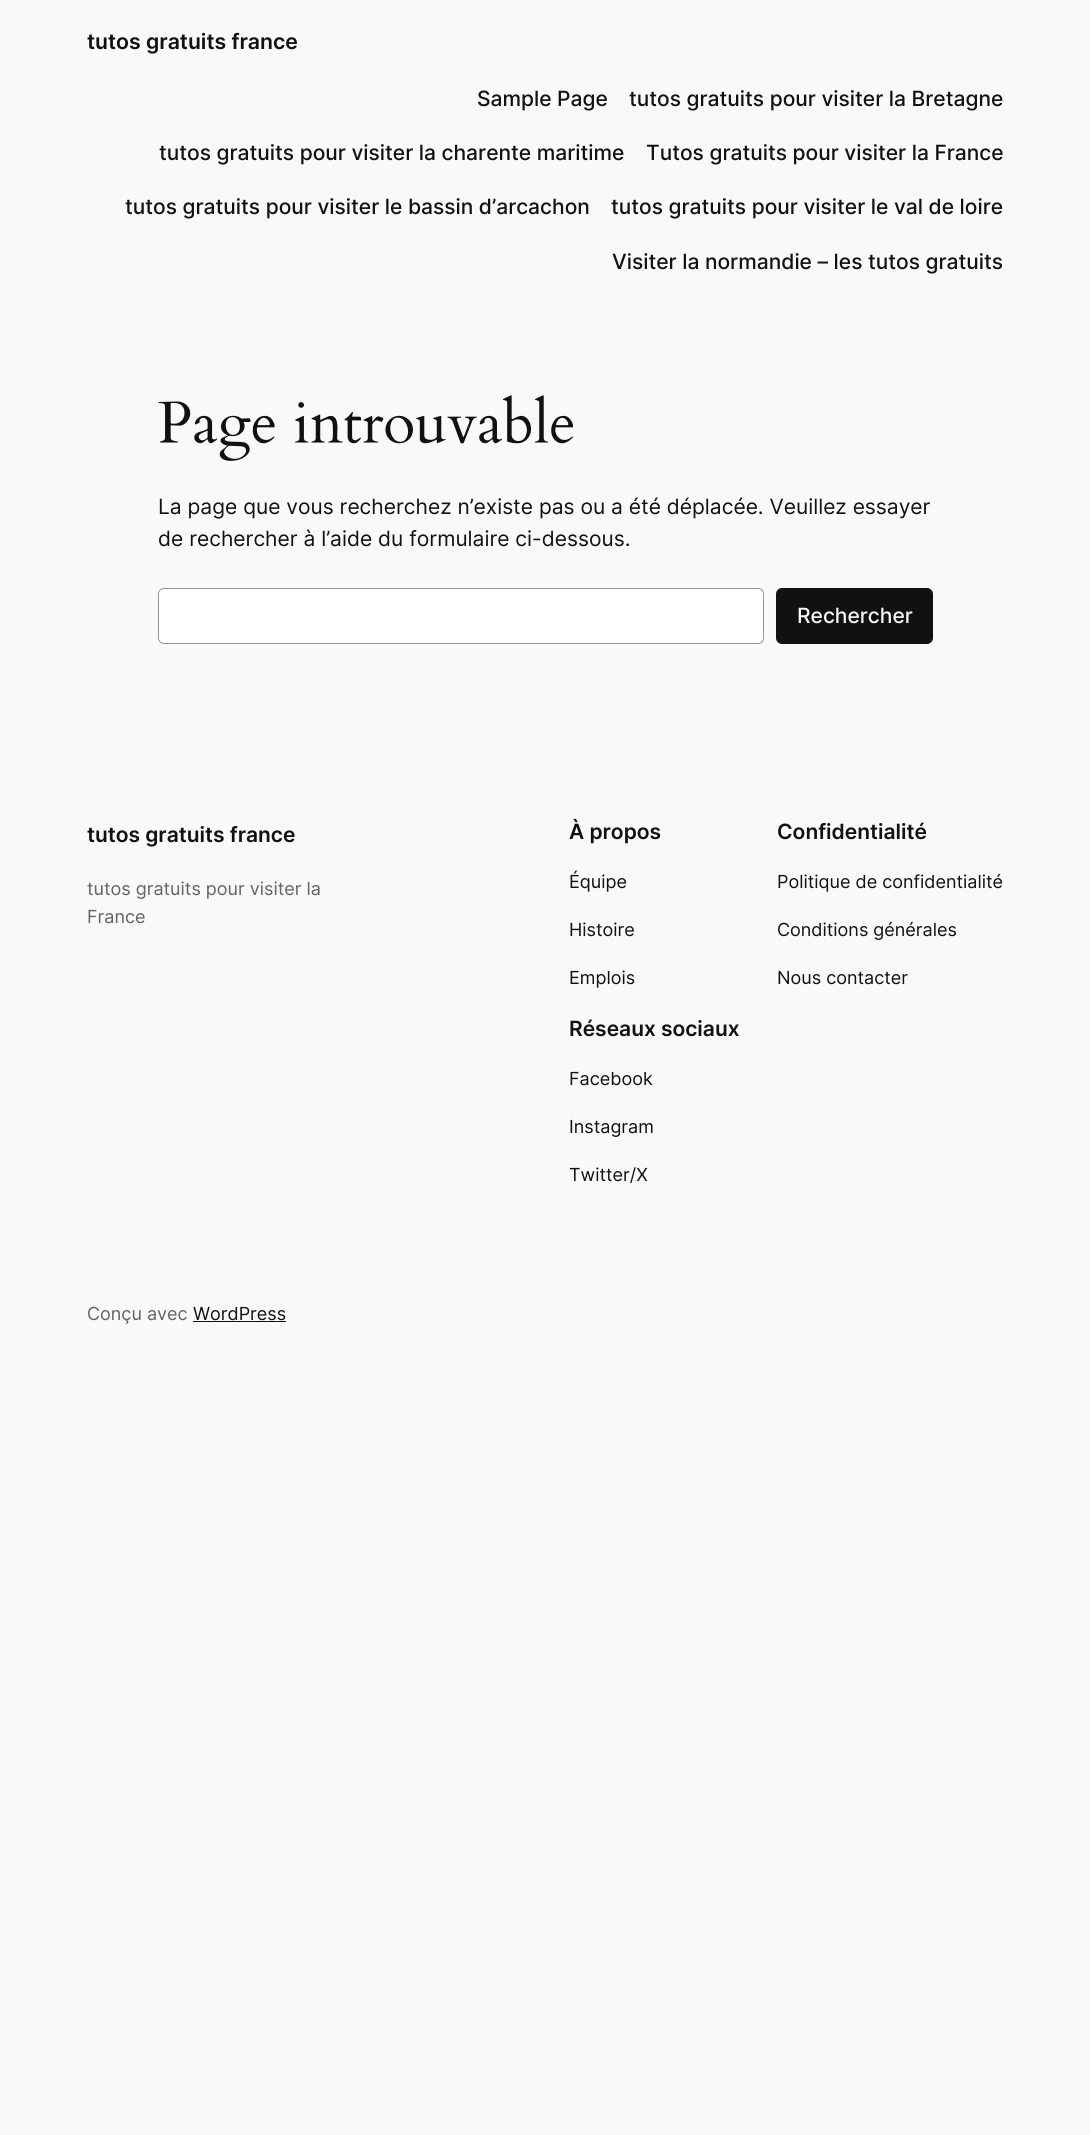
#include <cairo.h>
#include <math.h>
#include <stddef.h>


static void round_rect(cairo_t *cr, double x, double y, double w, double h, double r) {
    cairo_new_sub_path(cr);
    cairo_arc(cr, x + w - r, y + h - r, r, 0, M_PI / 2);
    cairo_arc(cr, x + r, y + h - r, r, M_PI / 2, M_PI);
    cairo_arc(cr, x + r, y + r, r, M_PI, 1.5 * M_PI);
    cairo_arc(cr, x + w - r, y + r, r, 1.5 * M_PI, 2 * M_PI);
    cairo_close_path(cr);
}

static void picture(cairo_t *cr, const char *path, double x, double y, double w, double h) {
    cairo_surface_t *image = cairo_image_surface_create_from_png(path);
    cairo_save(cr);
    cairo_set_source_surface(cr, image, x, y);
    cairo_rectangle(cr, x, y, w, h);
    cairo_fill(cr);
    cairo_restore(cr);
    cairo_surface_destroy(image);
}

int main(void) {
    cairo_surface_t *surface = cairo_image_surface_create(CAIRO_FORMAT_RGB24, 1090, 2135);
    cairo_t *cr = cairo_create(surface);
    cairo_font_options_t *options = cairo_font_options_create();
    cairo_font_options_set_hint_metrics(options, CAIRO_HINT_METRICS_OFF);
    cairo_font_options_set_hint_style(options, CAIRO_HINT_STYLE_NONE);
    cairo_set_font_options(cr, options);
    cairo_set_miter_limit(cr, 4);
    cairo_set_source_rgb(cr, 0.976, 0.976, 0.976);
    cairo_paint(cr);
    cairo_select_font_face(cr, "Inter SemiBold", CAIRO_FONT_SLANT_NORMAL, CAIRO_FONT_WEIGHT_NORMAL);
    cairo_set_font_size(cr, 21.25);
    cairo_set_source_rgb(cr, 0.067, 0.067, 0.067);
    cairo_move_to(cr, 87, 49);
    cairo_show_text(cr, "tutos gratuits france");
    cairo_select_font_face(cr, "Inter Medium", CAIRO_FONT_SLANT_NORMAL, CAIRO_FONT_WEIGHT_NORMAL);
    cairo_set_font_size(cr, 21);
    cairo_move_to(cr, 477, 106);
    cairo_show_text(cr, "Sample Page");
    cairo_move_to(cr, 629, 106);
    cairo_show_text(cr, "tutos gratuits pour visiter la Bretagne");
    cairo_move_to(cr, 159, 160);
    cairo_show_text(cr, "tutos gratuits pour visiter la charente maritime");
    cairo_move_to(cr, 646, 160);
    cairo_show_text(cr, "Tutos gratuits pour visiter la France");
    cairo_move_to(cr, 125, 214);
    cairo_show_text(cr, "tutos gratuits pour visiter le bassin d’arcachon");
    cairo_move_to(cr, 611, 214);
    cairo_show_text(cr, "tutos gratuits pour visiter le val de loire");
    cairo_move_to(cr, 612, 269);
    cairo_show_text(cr, "Visiter la normandie – les tutos gratuits");
    picture(cr, "img1.png", 158, 395, 416, 66);
    cairo_select_font_face(cr, "Inter", CAIRO_FONT_SLANT_NORMAL, CAIRO_FONT_WEIGHT_NORMAL);
    cairo_move_to(cr, 158, 514);
    cairo_show_text(cr, "La page que vous recherchez n’existe pas ou a été déplacée. Veuillez essayer");
    cairo_move_to(cr, 158, 546);
    cairo_show_text(cr, "de rechercher à l’aide du formulaire ci-dessous.");
    cairo_set_source_rgb(cr, 1, 1, 1);
    round_rect(cr, 158.5, 588.5, 605, 55, 5.5);
    cairo_fill_preserve(cr);
    cairo_set_source_rgb(cr, 0.58, 0.58, 0.58);
    cairo_set_line_width(cr, 1);
    cairo_stroke(cr);
    cairo_set_source_rgb(cr, 0.067, 0.067, 0.067);
    round_rect(cr, 776, 588, 157, 56, 6);
    cairo_fill(cr);
    cairo_select_font_face(cr, "Inter Medium", CAIRO_FONT_SLANT_NORMAL, CAIRO_FONT_WEIGHT_NORMAL);
    cairo_set_source_rgb(cr, 0.976, 0.976, 0.976);
    cairo_move_to(cr, 797, 623);
    cairo_show_text(cr, "Rechercher");
    cairo_select_font_face(cr, "Inter SemiBold", CAIRO_FONT_SLANT_NORMAL, CAIRO_FONT_WEIGHT_NORMAL);
    cairo_set_source_rgb(cr, 0.067, 0.067, 0.067);
    cairo_move_to(cr, 87, 842);
    cairo_show_text(cr, "tutos gratuits france");
    cairo_select_font_face(cr, "Inter", CAIRO_FONT_SLANT_NORMAL, CAIRO_FONT_WEIGHT_NORMAL);
    cairo_set_font_size(cr, 18);
    cairo_set_source_rgb(cr, 0.388, 0.388, 0.388);
    cairo_move_to(cr, 87, 895);
    cairo_show_text(cr, "tutos gratuits pour visiter la");
    cairo_move_to(cr, 87, 923);
    cairo_show_text(cr, "France");
    cairo_select_font_face(cr, "Inter SemiBold", CAIRO_FONT_SLANT_NORMAL, CAIRO_FONT_WEIGHT_NORMAL);
    cairo_set_font_size(cr, 21);
    cairo_set_source_rgb(cr, 0.067, 0.067, 0.067);
    cairo_move_to(cr, 569, 839);
    cairo_show_text(cr, "À propos");
    cairo_select_font_face(cr, "Inter", CAIRO_FONT_SLANT_NORMAL, CAIRO_FONT_WEIGHT_NORMAL);
    cairo_set_font_size(cr, 18);
    cairo_move_to(cr, 569, 888);
    cairo_show_text(cr, "Équipe");
    cairo_move_to(cr, 569, 936);
    cairo_show_text(cr, "Histoire");
    cairo_move_to(cr, 569, 984);
    cairo_show_text(cr, "Emplois");
    cairo_select_font_face(cr, "Inter SemiBold", CAIRO_FONT_SLANT_NORMAL, CAIRO_FONT_WEIGHT_NORMAL);
    cairo_set_font_size(cr, 21);
    cairo_move_to(cr, 777, 839);
    cairo_show_text(cr, "Confidentialité");
    cairo_select_font_face(cr, "Inter", CAIRO_FONT_SLANT_NORMAL, CAIRO_FONT_WEIGHT_NORMAL);
    cairo_set_font_size(cr, 18);
    cairo_move_to(cr, 777, 888);
    cairo_show_text(cr, "Politique de confidentialité");
    cairo_move_to(cr, 777, 936);
    cairo_show_text(cr, "Conditions générales");
    cairo_move_to(cr, 777, 984);
    cairo_show_text(cr, "Nous contacter");
    cairo_select_font_face(cr, "Inter SemiBold", CAIRO_FONT_SLANT_NORMAL, CAIRO_FONT_WEIGHT_NORMAL);
    cairo_set_font_size(cr, 21);
    cairo_move_to(cr, 569, 1036);
    cairo_show_text(cr, "Réseaux sociaux");
    cairo_select_font_face(cr, "Inter", CAIRO_FONT_SLANT_NORMAL, CAIRO_FONT_WEIGHT_NORMAL);
    cairo_set_font_size(cr, 18);
    cairo_move_to(cr, 569, 1085);
    cairo_show_text(cr, "Facebook");
    cairo_move_to(cr, 569, 1133);
    cairo_show_text(cr, "Instagram");
    cairo_move_to(cr, 569, 1181);
    cairo_show_text(cr, "Twitter/X");
    cairo_set_source_rgb(cr, 0.388, 0.388, 0.388);
    cairo_move_to(cr, 87, 1320);
    cairo_show_text(cr, "Conçu avec");
    cairo_set_source_rgb(cr, 0.067, 0.067, 0.067);
    cairo_move_to(cr, 193, 1320);
    cairo_show_text(cr, "WordPress");
    cairo_rectangle(cr, 193, 1321, 93, 1);
    cairo_fill(cr);
    cairo_surface_write_to_png(surface, "page.png");
    cairo_font_options_destroy(options);
    cairo_destroy(cr);
    cairo_surface_destroy(surface);
    return 0;
}
